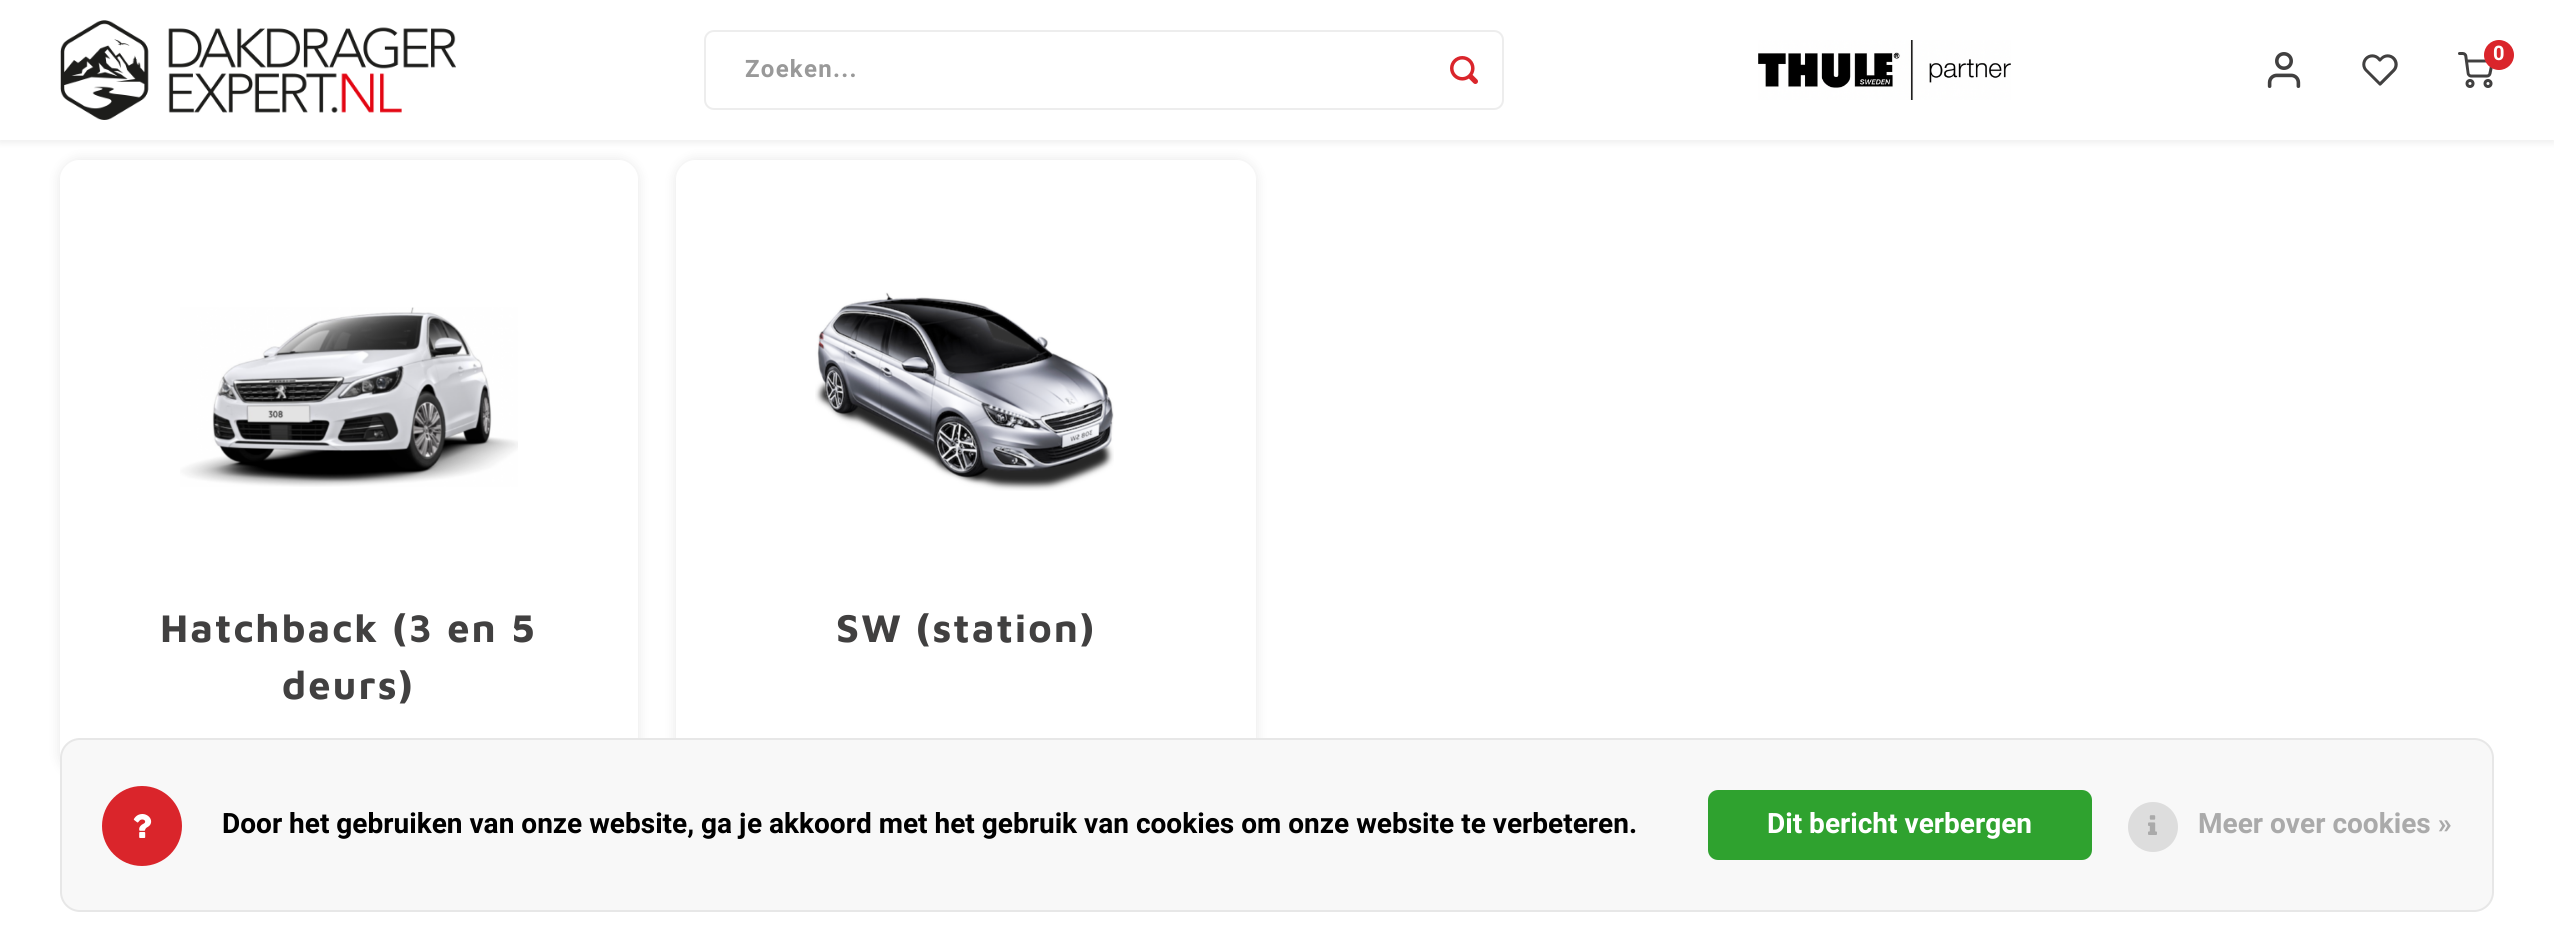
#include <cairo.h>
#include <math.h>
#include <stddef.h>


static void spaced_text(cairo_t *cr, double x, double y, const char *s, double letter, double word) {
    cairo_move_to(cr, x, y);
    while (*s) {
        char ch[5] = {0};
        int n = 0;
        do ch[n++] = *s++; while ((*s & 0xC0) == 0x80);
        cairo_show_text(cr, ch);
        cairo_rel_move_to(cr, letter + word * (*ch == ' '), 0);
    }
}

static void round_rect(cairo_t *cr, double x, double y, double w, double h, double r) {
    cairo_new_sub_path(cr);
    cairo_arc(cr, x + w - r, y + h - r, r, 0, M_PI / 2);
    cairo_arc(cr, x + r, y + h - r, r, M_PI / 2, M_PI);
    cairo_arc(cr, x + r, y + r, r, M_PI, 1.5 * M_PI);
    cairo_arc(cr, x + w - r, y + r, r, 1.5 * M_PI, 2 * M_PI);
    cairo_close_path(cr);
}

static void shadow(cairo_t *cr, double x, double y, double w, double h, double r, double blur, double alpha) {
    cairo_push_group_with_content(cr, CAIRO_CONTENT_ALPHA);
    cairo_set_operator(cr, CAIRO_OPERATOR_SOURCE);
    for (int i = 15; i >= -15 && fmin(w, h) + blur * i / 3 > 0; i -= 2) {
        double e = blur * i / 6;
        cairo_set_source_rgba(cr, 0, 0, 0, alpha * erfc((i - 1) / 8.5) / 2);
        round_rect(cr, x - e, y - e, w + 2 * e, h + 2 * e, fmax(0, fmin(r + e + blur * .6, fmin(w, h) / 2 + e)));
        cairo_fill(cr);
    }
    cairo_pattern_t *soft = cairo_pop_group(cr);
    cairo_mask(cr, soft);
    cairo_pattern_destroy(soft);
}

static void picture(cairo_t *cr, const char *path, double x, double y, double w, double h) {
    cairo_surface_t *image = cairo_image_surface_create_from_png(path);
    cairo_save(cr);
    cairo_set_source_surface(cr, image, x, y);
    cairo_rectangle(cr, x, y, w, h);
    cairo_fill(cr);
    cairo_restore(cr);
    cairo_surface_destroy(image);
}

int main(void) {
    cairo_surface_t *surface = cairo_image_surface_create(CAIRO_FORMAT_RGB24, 2554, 952);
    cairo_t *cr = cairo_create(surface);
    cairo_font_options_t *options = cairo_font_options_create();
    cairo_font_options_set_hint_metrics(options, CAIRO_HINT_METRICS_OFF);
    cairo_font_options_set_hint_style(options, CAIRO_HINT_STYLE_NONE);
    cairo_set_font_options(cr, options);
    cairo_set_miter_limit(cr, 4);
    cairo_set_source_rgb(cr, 1, 1, 1);
    cairo_paint(cr);
    cairo_set_source_rgb(cr, 0, 0, 0);
    shadow(cr, 0, 2, 2554, 140, 0, 4, 0.08);
    cairo_set_source_rgb(cr, 1, 1, 1);
    cairo_rectangle(cr, 0, 0, 2554, 140);
    cairo_fill(cr);
    picture(cr, "img1.png", 60, 20, 396, 100);
    picture(cr, "img2.png", 1758, 40, 253, 60);
    picture(cr, "img3.png", 2267, 52, 34, 36);
    picture(cr, "img4.png", 2362, 54, 36, 32);
    picture(cr, "img5.png", 2458, 52, 35, 36);
    cairo_set_source_rgb(cr, 0.855, 0.145, 0.169);
    cairo_arc(cr, 2499, 55, 15, 0, 2 * M_PI);
    cairo_fill(cr);
    cairo_select_font_face(cr, "Heebo", CAIRO_FONT_SLANT_NORMAL, CAIRO_FONT_WEIGHT_BOLD);
    cairo_set_font_size(cr, 20);
    cairo_set_source_rgb(cr, 1, 1, 1);
    cairo_move_to(cr, 2493, 60);
    cairo_show_text(cr, "0");
    round_rect(cr, 705, 31, 798, 78, 9);
    cairo_set_source_rgb(cr, 0.929, 0.929, 0.929);
    cairo_stroke(cr);
    cairo_set_font_size(cr, 24);
    cairo_set_source_rgb(cr, 0.6, 0.6, 0.6);
    spaced_text(cr, 745, 77, "Zoeken...", 1.25, 0);
    picture(cr, "img6.png", 1450, 56, 28, 28);
    cairo_save(cr);
    cairo_set_fill_rule(cr, CAIRO_FILL_RULE_EVEN_ODD);
    cairo_new_path(cr);
    cairo_move_to(cr, 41, 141);
    cairo_line_to(cr, 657, 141);
    cairo_line_to(cr, 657, 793);
    cairo_line_to(cr, 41, 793);
    cairo_close_path(cr);
    cairo_move_to(cr, 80, 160);
    cairo_line_to(cr, 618, 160);
    cairo_curve_to(cr, 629, 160, 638, 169, 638, 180);
    cairo_line_to(cr, 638, 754);
    cairo_curve_to(cr, 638, 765, 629, 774, 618, 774);
    cairo_line_to(cr, 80, 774);
    cairo_curve_to(cr, 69, 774, 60, 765, 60, 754);
    cairo_line_to(cr, 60, 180);
    cairo_curve_to(cr, 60, 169, 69, 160, 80, 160);
    cairo_close_path(cr);
    cairo_clip(cr);
    cairo_set_source_rgb(cr, 0, 0, 0);
    shadow(cr, 60, 160, 578, 614, 20, 6, 0.1);
    cairo_restore(cr);
    picture(cr, "img7.png", 180, 307, 338, 180);
    cairo_select_font_face(cr, "Maven Pro", CAIRO_FONT_SLANT_NORMAL, CAIRO_FONT_WEIGHT_BOLD);
    cairo_set_font_size(cr, 39.75);
    cairo_set_source_rgb(cr, 0.255, 0.251, 0.251);
    spaced_text(cr, 160, 642, "Hatchback (3 en 5", 2, 0);
    spaced_text(cr, 282, 699, "deurs)", 2, 0);
    cairo_save(cr);
    cairo_set_fill_rule(cr, CAIRO_FILL_RULE_EVEN_ODD);
    cairo_new_path(cr);
    cairo_move_to(cr, 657, 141);
    cairo_line_to(cr, 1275, 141);
    cairo_line_to(cr, 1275, 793);
    cairo_line_to(cr, 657, 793);
    cairo_close_path(cr);
    cairo_move_to(cr, 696, 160);
    cairo_line_to(cr, 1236, 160);
    cairo_curve_to(cr, 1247, 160, 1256, 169, 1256, 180);
    cairo_line_to(cr, 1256, 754);
    cairo_curve_to(cr, 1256, 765, 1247, 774, 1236, 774);
    cairo_line_to(cr, 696, 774);
    cairo_curve_to(cr, 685, 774, 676, 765, 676, 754);
    cairo_line_to(cr, 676, 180);
    cairo_curve_to(cr, 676, 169, 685, 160, 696, 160);
    cairo_close_path(cr);
    cairo_clip(cr);
    cairo_set_source_rgb(cr, 0, 0, 0);
    shadow(cr, 676, 160, 580, 614, 20, 6, 0.1);
    cairo_restore(cr);
    picture(cr, "img8.png", 815, 292, 299, 199);
    spaced_text(cr, 836, 642, "SW (station)", 2, 0);
    cairo_set_source_rgb(cr, 0.969, 0.969, 0.969);
    round_rect(cr, 60, 738, 2434, 174, 20);
    cairo_fill(cr);
    round_rect(cr, 61, 739, 2432, 172, 19);
    cairo_set_source_rgba(cr, 0, 0, 0, 0.07);
    cairo_stroke(cr);
    cairo_set_source_rgb(cr, 0.855, 0.145, 0.169);
    cairo_arc(cr, 142, 826, 40, 0, 2 * M_PI);
    cairo_fill(cr);
    picture(cr, "img9.png", 133, 814, 19, 24);
    cairo_select_font_face(cr, "Heebo", CAIRO_FONT_SLANT_NORMAL, CAIRO_FONT_WEIGHT_BOLD);
    cairo_set_font_size(cr, 28);
    cairo_set_source_rgb(cr, 0, 0, 0);
    cairo_move_to(cr, 222, 833);
    cairo_show_text(cr, "Door het gebruiken van onze website, ga je akkoord met het gebruik van cookies om onze website te verbeteren.");
    cairo_set_source_rgb(cr, 0.184, 0.635, 0.184);
    round_rect(cr, 1708, 790, 384, 70, 10);
    cairo_fill(cr);
    cairo_set_source_rgb(cr, 1, 1, 1);
    cairo_move_to(cr, 1767, 833);
    cairo_show_text(cr, "Dit bericht verbergen");
    cairo_set_source_rgb(cr, 0.867, 0.867, 0.867);
    cairo_new_path(cr);
    cairo_arc(cr, 2153, 827, 25, 0, 2 * M_PI);
    cairo_fill(cr);
    picture(cr, "img10.png", 2148, 815, 9, 20);
    cairo_set_source_rgb(cr, 0.667, 0.667, 0.667);
    cairo_move_to(cr, 2198, 833);
    cairo_show_text(cr, "Meer over cookies »");
    cairo_surface_write_to_png(surface, "page.png");
    cairo_font_options_destroy(options);
    cairo_destroy(cr);
    cairo_surface_destroy(surface);
    return 0;
}
